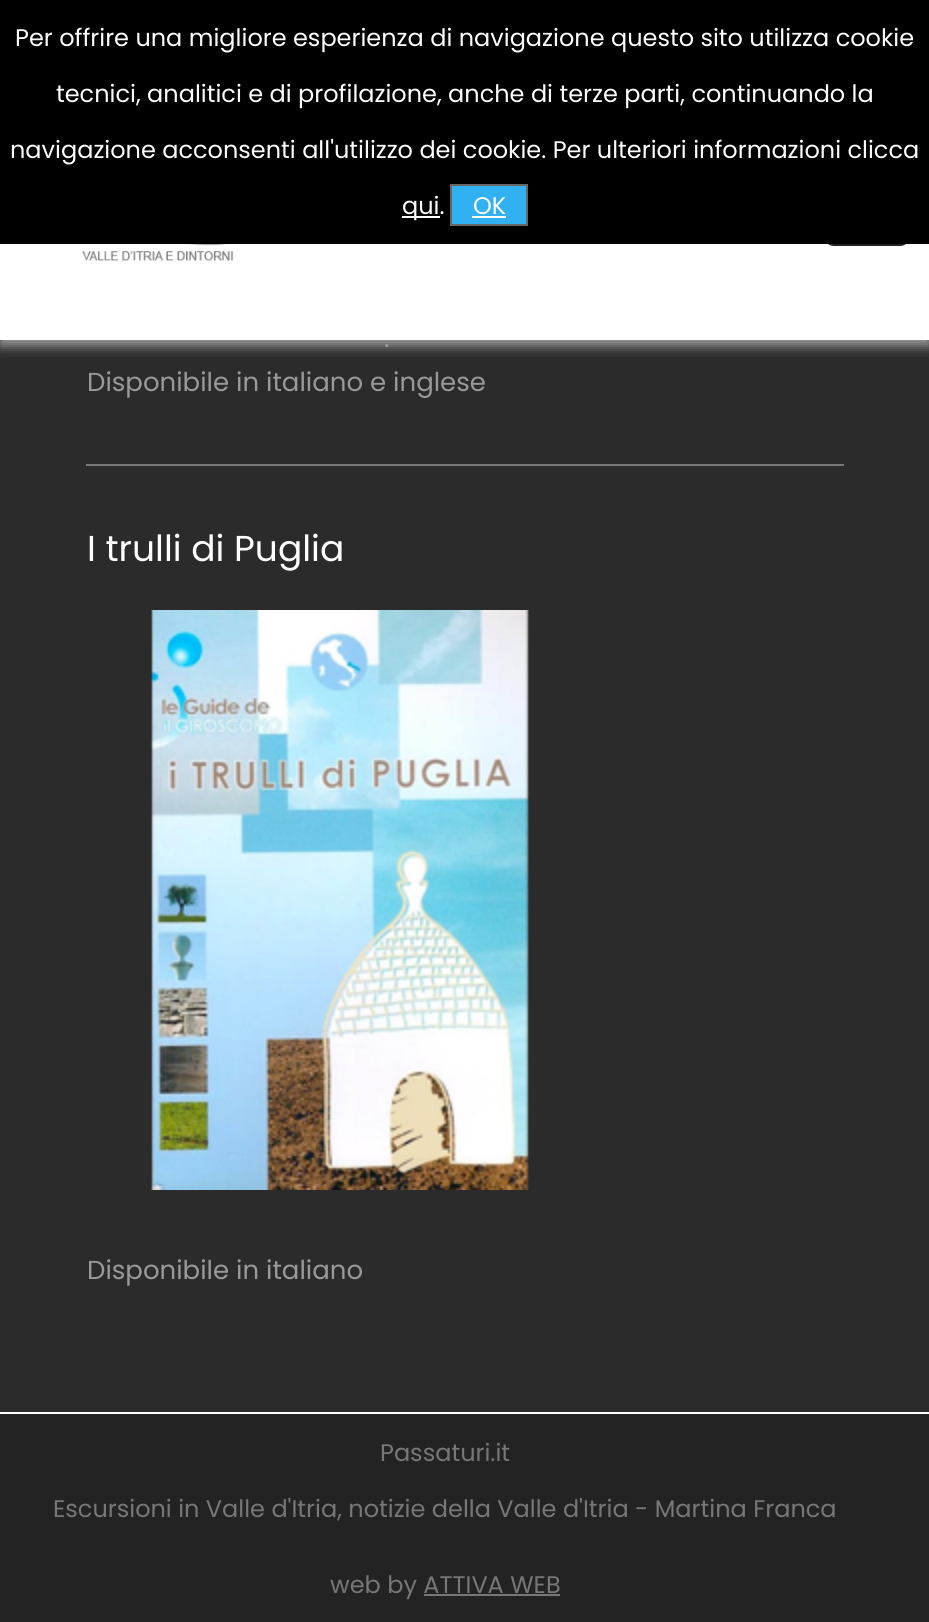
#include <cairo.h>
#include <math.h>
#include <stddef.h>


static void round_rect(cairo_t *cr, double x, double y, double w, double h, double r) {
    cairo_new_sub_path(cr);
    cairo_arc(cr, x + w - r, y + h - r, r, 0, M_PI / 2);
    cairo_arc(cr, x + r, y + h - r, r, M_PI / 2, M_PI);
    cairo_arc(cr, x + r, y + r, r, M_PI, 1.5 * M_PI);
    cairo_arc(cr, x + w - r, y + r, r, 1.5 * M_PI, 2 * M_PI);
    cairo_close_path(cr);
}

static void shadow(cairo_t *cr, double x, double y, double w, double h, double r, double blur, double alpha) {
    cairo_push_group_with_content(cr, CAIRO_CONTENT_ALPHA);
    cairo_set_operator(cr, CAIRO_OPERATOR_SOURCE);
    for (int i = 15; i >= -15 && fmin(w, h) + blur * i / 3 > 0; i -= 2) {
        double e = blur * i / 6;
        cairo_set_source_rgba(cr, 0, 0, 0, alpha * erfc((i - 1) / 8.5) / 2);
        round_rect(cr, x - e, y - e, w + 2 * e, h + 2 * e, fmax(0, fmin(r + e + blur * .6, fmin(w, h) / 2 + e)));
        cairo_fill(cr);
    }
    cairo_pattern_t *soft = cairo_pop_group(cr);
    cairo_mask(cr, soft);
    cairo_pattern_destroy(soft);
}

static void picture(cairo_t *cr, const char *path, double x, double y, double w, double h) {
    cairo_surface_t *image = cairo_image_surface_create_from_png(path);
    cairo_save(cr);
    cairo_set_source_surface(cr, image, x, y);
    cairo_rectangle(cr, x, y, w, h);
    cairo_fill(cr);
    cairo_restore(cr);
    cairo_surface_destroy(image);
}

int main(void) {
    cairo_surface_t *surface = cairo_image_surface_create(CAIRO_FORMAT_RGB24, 929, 1622);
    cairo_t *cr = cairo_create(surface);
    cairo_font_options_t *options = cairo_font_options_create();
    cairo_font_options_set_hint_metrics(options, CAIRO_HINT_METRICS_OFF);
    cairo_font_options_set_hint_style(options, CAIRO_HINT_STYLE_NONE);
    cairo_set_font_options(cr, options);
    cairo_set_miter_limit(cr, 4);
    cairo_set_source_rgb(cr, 0.169, 0.169, 0.169);
    cairo_paint(cr);
    cairo_set_source_rgb(cr, 0.776, 0.776, 0.776);
    shadow(cr, 0, 6, 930, 340, 0, 6, 0.75);
    cairo_set_source_rgb(cr, 1, 1, 1);
    cairo_rectangle(cr, 0, 244, 929, 96);
    cairo_fill(cr);
    cairo_set_source_rgb(cr, 0.133, 0.133, 0.133);
    round_rect(cr, 824, 168, 86, 78, 10);
    cairo_fill(cr);
    picture(cr, "img1.png", 82, 244, 152, 17);
    cairo_set_source_rgb(cr, 0, 0, 0);
    cairo_rectangle(cr, 0, 0, 929, 244);
    cairo_fill(cr);
    cairo_select_font_face(cr, "Poppins", CAIRO_FONT_SLANT_NORMAL, CAIRO_FONT_WEIGHT_NORMAL);
    cairo_set_font_size(cr, 24);
    cairo_set_source_rgb(cr, 1, 1, 1);
    cairo_move_to(cr, 15, 46);
    cairo_show_text(cr, "Per offrire una migliore esperienza di navigazione questo sito utilizza cookie");
    cairo_move_to(cr, 56, 102);
    cairo_show_text(cr, "tecnici, analitici e di profilazione, anche di terze parti, continuando la");
    cairo_move_to(cr, 10, 158);
    cairo_show_text(cr, "navigazione acconsenti all'utilizzo dei cookie. Per ulteriori informazioni clicca");
    cairo_rectangle(cr, 402, 216, 38, 2);
    cairo_fill(cr);
    cairo_move_to(cr, 402, 214);
    cairo_show_text(cr, "qui.");
    cairo_set_source_rgb(cr, 0.192, 0.694, 0.945);
    cairo_rectangle(cr, 451, 185, 76, 40);
    cairo_fill_preserve(cr);
    cairo_set_source_rgb(cr, 0.4, 0.4, 0.4);
    cairo_stroke(cr);
    cairo_set_source_rgb(cr, 1, 1, 1);
    cairo_move_to(cr, 473, 214);
    cairo_show_text(cr, "OK");
    cairo_rectangle(cr, 472, 216, 34, 2);
    cairo_fill(cr);
    cairo_set_source_rgb(cr, 0.467, 0.467, 0.467);
    cairo_rectangle(cr, 86, 464, 758, 2);
    cairo_fill(cr);
    cairo_set_font_size(cr, 26);
    cairo_set_source_rgb(cr, 0.6, 0.6, 0.6);
    cairo_move_to(cr, 384, 347);
    cairo_show_text(cr, ".");
    cairo_move_to(cr, 87, 391);
    cairo_show_text(cr, "Disponibile in italiano e inglese");
    cairo_set_font_size(cr, 36);
    cairo_set_source_rgb(cr, 1, 1, 1);
    cairo_move_to(cr, 87, 561);
    cairo_show_text(cr, "I trulli di Puglia");
    picture(cr, "img2.png", 151, 610, 378, 580);
    cairo_set_font_size(cr, 26);
    cairo_set_source_rgb(cr, 0.6, 0.6, 0.6);
    cairo_move_to(cr, 87, 1279);
    cairo_show_text(cr, "Disponibile in italiano");
    cairo_set_source_rgb(cr, 0.137, 0.137, 0.137);
    cairo_rectangle(cr, 0, 1414, 929, 208);
    cairo_fill(cr);
    cairo_set_source_rgb(cr, 1, 1, 1);
    cairo_rectangle(cr, 0, 1412, 929, 2);
    cairo_fill(cr);
    cairo_set_font_size(cr, 24);
    cairo_set_source_rgb(cr, 0.467, 0.467, 0.467);
    cairo_move_to(cr, 380, 1461);
    cairo_show_text(cr, "Passaturi.it");
    cairo_move_to(cr, 53, 1517);
    cairo_show_text(cr, "Escursioni in Valle d'Itria, notizie della Valle d'Itria - Martina Franca");
    cairo_move_to(cr, 330, 1593);
    cairo_show_text(cr, "web by ATTIVA WEB");
    cairo_rectangle(cr, 424, 1594, 136, 2);
    cairo_fill(cr);
    cairo_surface_write_to_png(surface, "page.png");
    cairo_font_options_destroy(options);
    cairo_destroy(cr);
    cairo_surface_destroy(surface);
    return 0;
}
